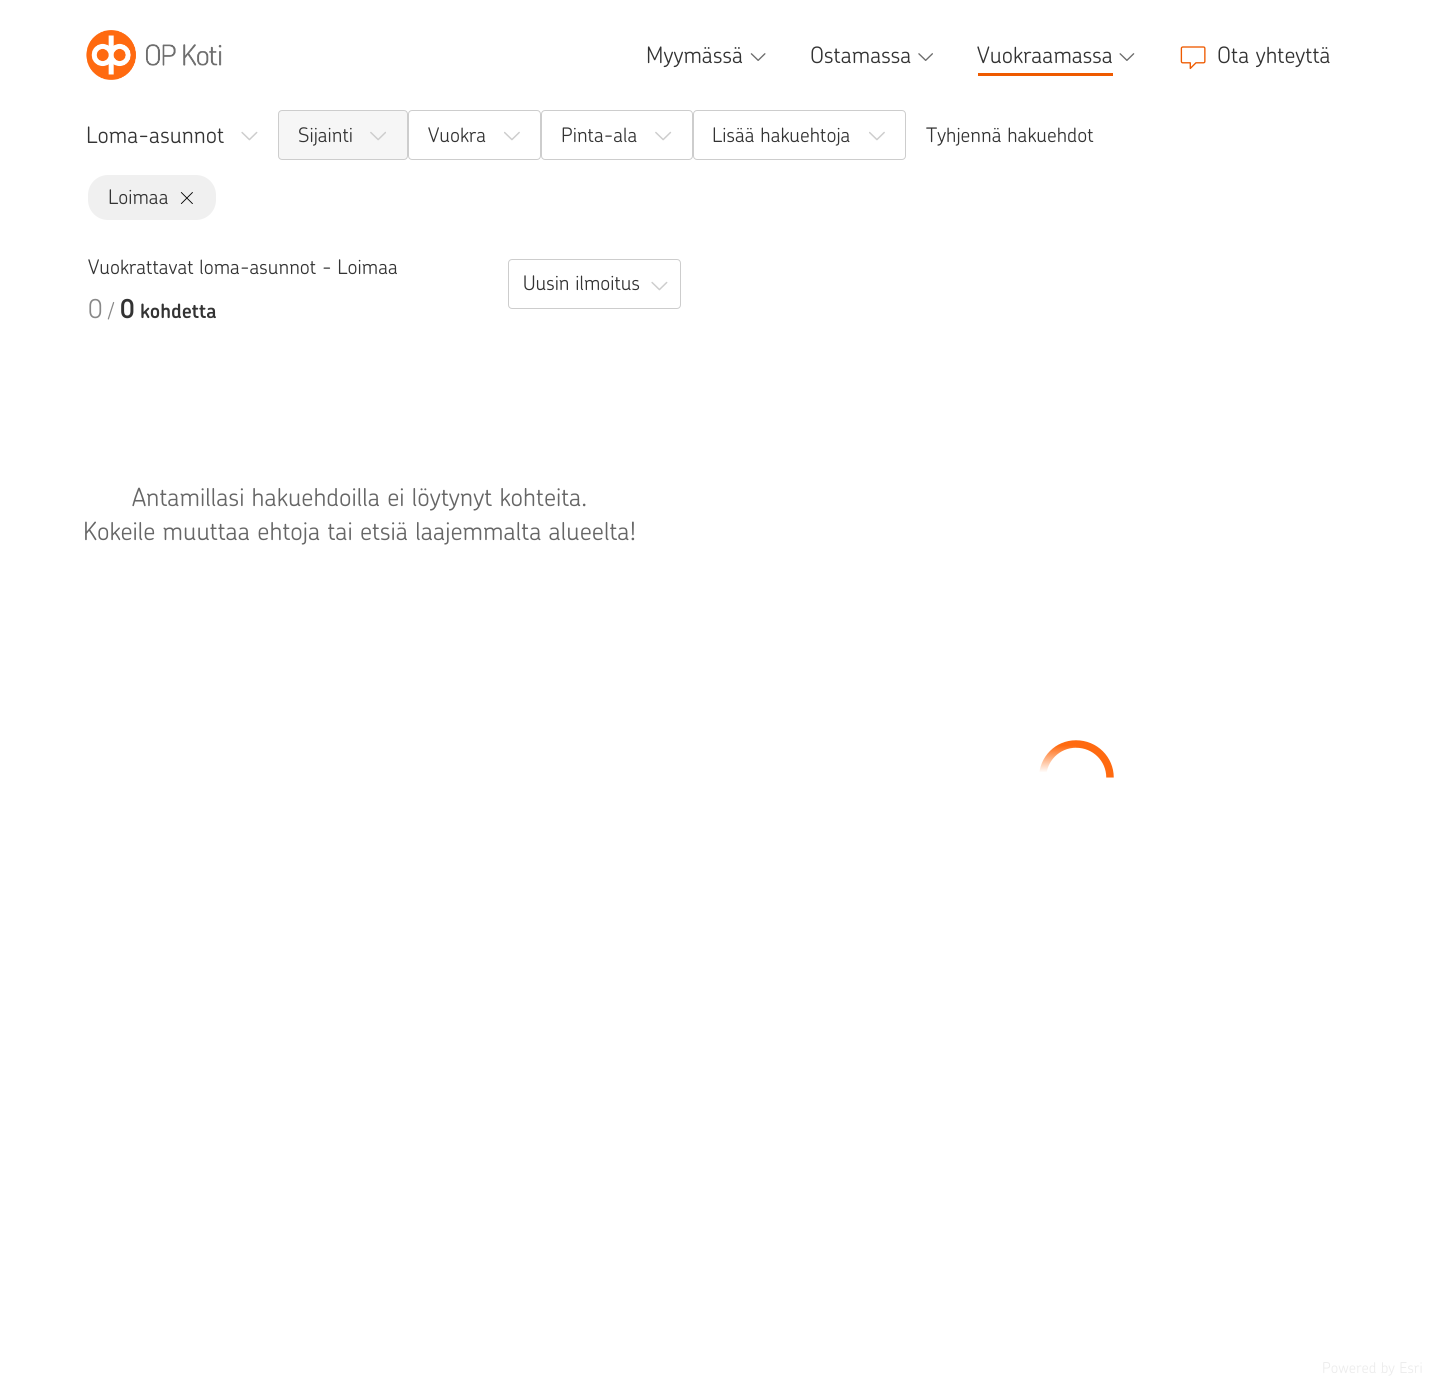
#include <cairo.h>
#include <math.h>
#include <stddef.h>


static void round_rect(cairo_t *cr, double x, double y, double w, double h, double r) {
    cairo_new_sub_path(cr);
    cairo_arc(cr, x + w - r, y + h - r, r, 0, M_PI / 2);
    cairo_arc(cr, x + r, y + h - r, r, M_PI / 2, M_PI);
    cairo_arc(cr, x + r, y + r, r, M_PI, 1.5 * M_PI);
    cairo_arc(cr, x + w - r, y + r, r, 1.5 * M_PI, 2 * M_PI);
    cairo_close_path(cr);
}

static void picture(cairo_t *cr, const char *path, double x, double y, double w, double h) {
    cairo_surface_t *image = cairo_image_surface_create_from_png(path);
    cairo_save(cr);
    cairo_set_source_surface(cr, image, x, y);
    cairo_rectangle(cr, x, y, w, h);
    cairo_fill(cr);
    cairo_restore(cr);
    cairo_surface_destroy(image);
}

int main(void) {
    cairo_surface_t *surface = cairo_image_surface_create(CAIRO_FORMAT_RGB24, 1435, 1384);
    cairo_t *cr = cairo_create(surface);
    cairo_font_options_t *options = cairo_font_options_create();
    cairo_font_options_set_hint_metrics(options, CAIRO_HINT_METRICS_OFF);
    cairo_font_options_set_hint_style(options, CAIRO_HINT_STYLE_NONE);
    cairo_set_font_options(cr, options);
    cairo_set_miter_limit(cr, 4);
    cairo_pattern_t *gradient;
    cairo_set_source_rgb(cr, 1, 1, 1);
    cairo_paint(cr);
    picture(cr, "img1.png", 86, 30, 136, 50);
    cairo_select_font_face(cr, "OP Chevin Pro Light", CAIRO_FONT_SLANT_NORMAL, CAIRO_FONT_WEIGHT_NORMAL);
    cairo_set_font_size(cr, 22.5);
    cairo_set_source_rgb(cr, 0.2, 0.2, 0.2);
    cairo_move_to(cr, 646, 63);
    cairo_show_text(cr, "Myymässä");
    picture(cr, "img2.png", 750, 53, 16, 8);
    cairo_move_to(cr, 810, 63);
    cairo_show_text(cr, "Ostamassa");
    picture(cr, "img3.png", 918, 53, 15, 8);
    cairo_set_source_rgb(cr, 0.933, 0.353, 0);
    cairo_rectangle(cr, 978, 73, 135, 3);
    cairo_fill(cr);
    cairo_set_source_rgb(cr, 0.2, 0.2, 0.2);
    cairo_move_to(cr, 977, 63);
    cairo_show_text(cr, "Vuokraamassa");
    picture(cr, "img4.png", 1119, 53, 16, 8);
    picture(cr, "img5.png", 1180, 46, 26, 24);
    cairo_move_to(cr, 1217, 63);
    cairo_show_text(cr, "Ota yhteyttä");
    cairo_move_to(cr, 86, 143);
    cairo_show_text(cr, "Loma-asunnot");
    picture(cr, "img6.png", 241, 131, 17, 10);
    cairo_set_source_rgb(cr, 0.961, 0.961, 0.961);
    round_rect(cr, 278.5, 110.5, 129, 49, 3.5);
    cairo_fill_preserve(cr);
    cairo_set_source_rgb(cr, 0.804, 0.804, 0.804);
    cairo_set_line_width(cr, 1);
    cairo_stroke(cr);
    cairo_set_font_size(cr, 20);
    cairo_set_source_rgb(cr, 0.2, 0.2, 0.2);
    cairo_move_to(cr, 298, 142);
    cairo_show_text(cr, "Sijainti");
    picture(cr, "img7.png", 370, 131, 16, 10);
    round_rect(cr, 408.5, 110.5, 132, 49, 3.5);
    cairo_set_source_rgb(cr, 0.804, 0.804, 0.804);
    cairo_stroke(cr);
    cairo_set_source_rgb(cr, 0.2, 0.2, 0.2);
    cairo_move_to(cr, 428, 142);
    cairo_show_text(cr, "Vuokra");
    picture(cr, "img8.png", 504, 131, 16, 10);
    round_rect(cr, 541.5, 110.5, 151, 49, 3.5);
    cairo_set_source_rgb(cr, 0.804, 0.804, 0.804);
    cairo_stroke(cr);
    cairo_set_source_rgb(cr, 0.2, 0.2, 0.2);
    cairo_move_to(cr, 561, 142);
    cairo_show_text(cr, "Pinta-ala");
    picture(cr, "img9.png", 655, 131, 17, 10);
    round_rect(cr, 693.5, 110.5, 212, 49, 3.5);
    cairo_set_source_rgb(cr, 0.804, 0.804, 0.804);
    cairo_stroke(cr);
    cairo_set_source_rgb(cr, 0.2, 0.2, 0.2);
    cairo_move_to(cr, 712, 142);
    cairo_show_text(cr, "Lisää hakuehtoja");
    picture(cr, "img8.png", 869, 131, 16, 10);
    cairo_move_to(cr, 926, 142);
    cairo_show_text(cr, "Tyhjennä hakuehdot");
    cairo_set_source_rgb(cr, 0.941, 0.941, 0.941);
    round_rect(cr, 88, 175, 128, 45, 20);
    cairo_fill(cr);
    cairo_set_source_rgb(cr, 0.2, 0.2, 0.2);
    cairo_move_to(cr, 108, 204);
    cairo_show_text(cr, "Loimaa");
    picture(cr, "img10.png", 180, 192, 13, 12);
    cairo_move_to(cr, 88, 274);
    cairo_show_text(cr, "Vuokrattavat loma-asunnot - Loimaa");
    cairo_set_font_size(cr, 26);
    cairo_set_source_rgb(cr, 0.533, 0.533, 0.533);
    cairo_move_to(cr, 88, 318);
    cairo_show_text(cr, "0");
    cairo_set_font_size(cr, 20);
    cairo_move_to(cr, 108, 318);
    cairo_show_text(cr, "/");
    cairo_select_font_face(cr, "OP Chevin Pro SemiBold", CAIRO_FONT_SLANT_NORMAL, CAIRO_FONT_WEIGHT_NORMAL);
    cairo_set_font_size(cr, 26);
    cairo_set_source_rgb(cr, 0.2, 0.2, 0.2);
    cairo_move_to(cr, 120, 318);
    cairo_show_text(cr, "0");
    cairo_set_font_size(cr, 20);
    cairo_move_to(cr, 140, 318);
    cairo_show_text(cr, "kohdetta");
    round_rect(cr, 508.5, 259.5, 172, 49, 3.5);
    cairo_set_source_rgb(cr, 0.804, 0.804, 0.804);
    cairo_stroke(cr);
    cairo_select_font_face(cr, "OP Chevin Pro Light", CAIRO_FONT_SLANT_NORMAL, CAIRO_FONT_WEIGHT_NORMAL);
    cairo_set_source_rgb(cr, 0.2, 0.2, 0.2);
    cairo_move_to(cr, 523, 290);
    cairo_show_text(cr, "Uusin ilmoitus");
    picture(cr, "img6.png", 651, 281, 17, 10);
    cairo_set_font_size(cr, 25);
    cairo_set_source_rgb(cr, 0.4, 0.4, 0.4);
    cairo_move_to(cr, 132, 506);
    cairo_show_text(cr, "Antamillasi hakuehdoilla ei löytynyt kohteita.");
    cairo_move_to(cr, 83, 540);
    cairo_show_text(cr, "Kokeile muuttaa ehtoja tai etsiä laajemmalta alueelta!");
    cairo_save(cr);
    round_rect(cr, 1039, 740, 75, 75, 37.5);
    cairo_clip(cr);
    cairo_new_path(cr);
    cairo_move_to(cr, 1042.5, 777.5);
    cairo_curve_to(cr, 1042.5, 759, 1057.5, 744, 1076, 744);
    gradient = cairo_pattern_create_linear(1043, 744, 1043, 778);
    cairo_pattern_add_color_stop_rgba(gradient, 0.05, 1, 0.416, 0.063, 1);
    cairo_pattern_add_color_stop_rgba(gradient, 0.84, 1, 1, 1, 1);
    cairo_set_source(cr, gradient);
    cairo_pattern_destroy(gradient);
    cairo_set_line_width(cr, 7.5);
    cairo_stroke(cr);
    cairo_new_path(cr);
    cairo_move_to(cr, 1076, 744);
    cairo_curve_to(cr, 1095, 744, 1110, 759, 1110, 777.5);
    cairo_set_source_rgb(cr, 1, 0.416, 0.063);
    cairo_stroke(cr);
    cairo_restore(cr);
    cairo_set_font_size(cr, 15);
    cairo_set_source_rgb(cr, 0.922, 0.922, 0.922);
    cairo_move_to(cr, 1322, 1373);
    cairo_show_text(cr, "Powered by Esri");
    cairo_surface_write_to_png(surface, "page.png");
    cairo_font_options_destroy(options);
    cairo_destroy(cr);
    cairo_surface_destroy(surface);
    return 0;
}
